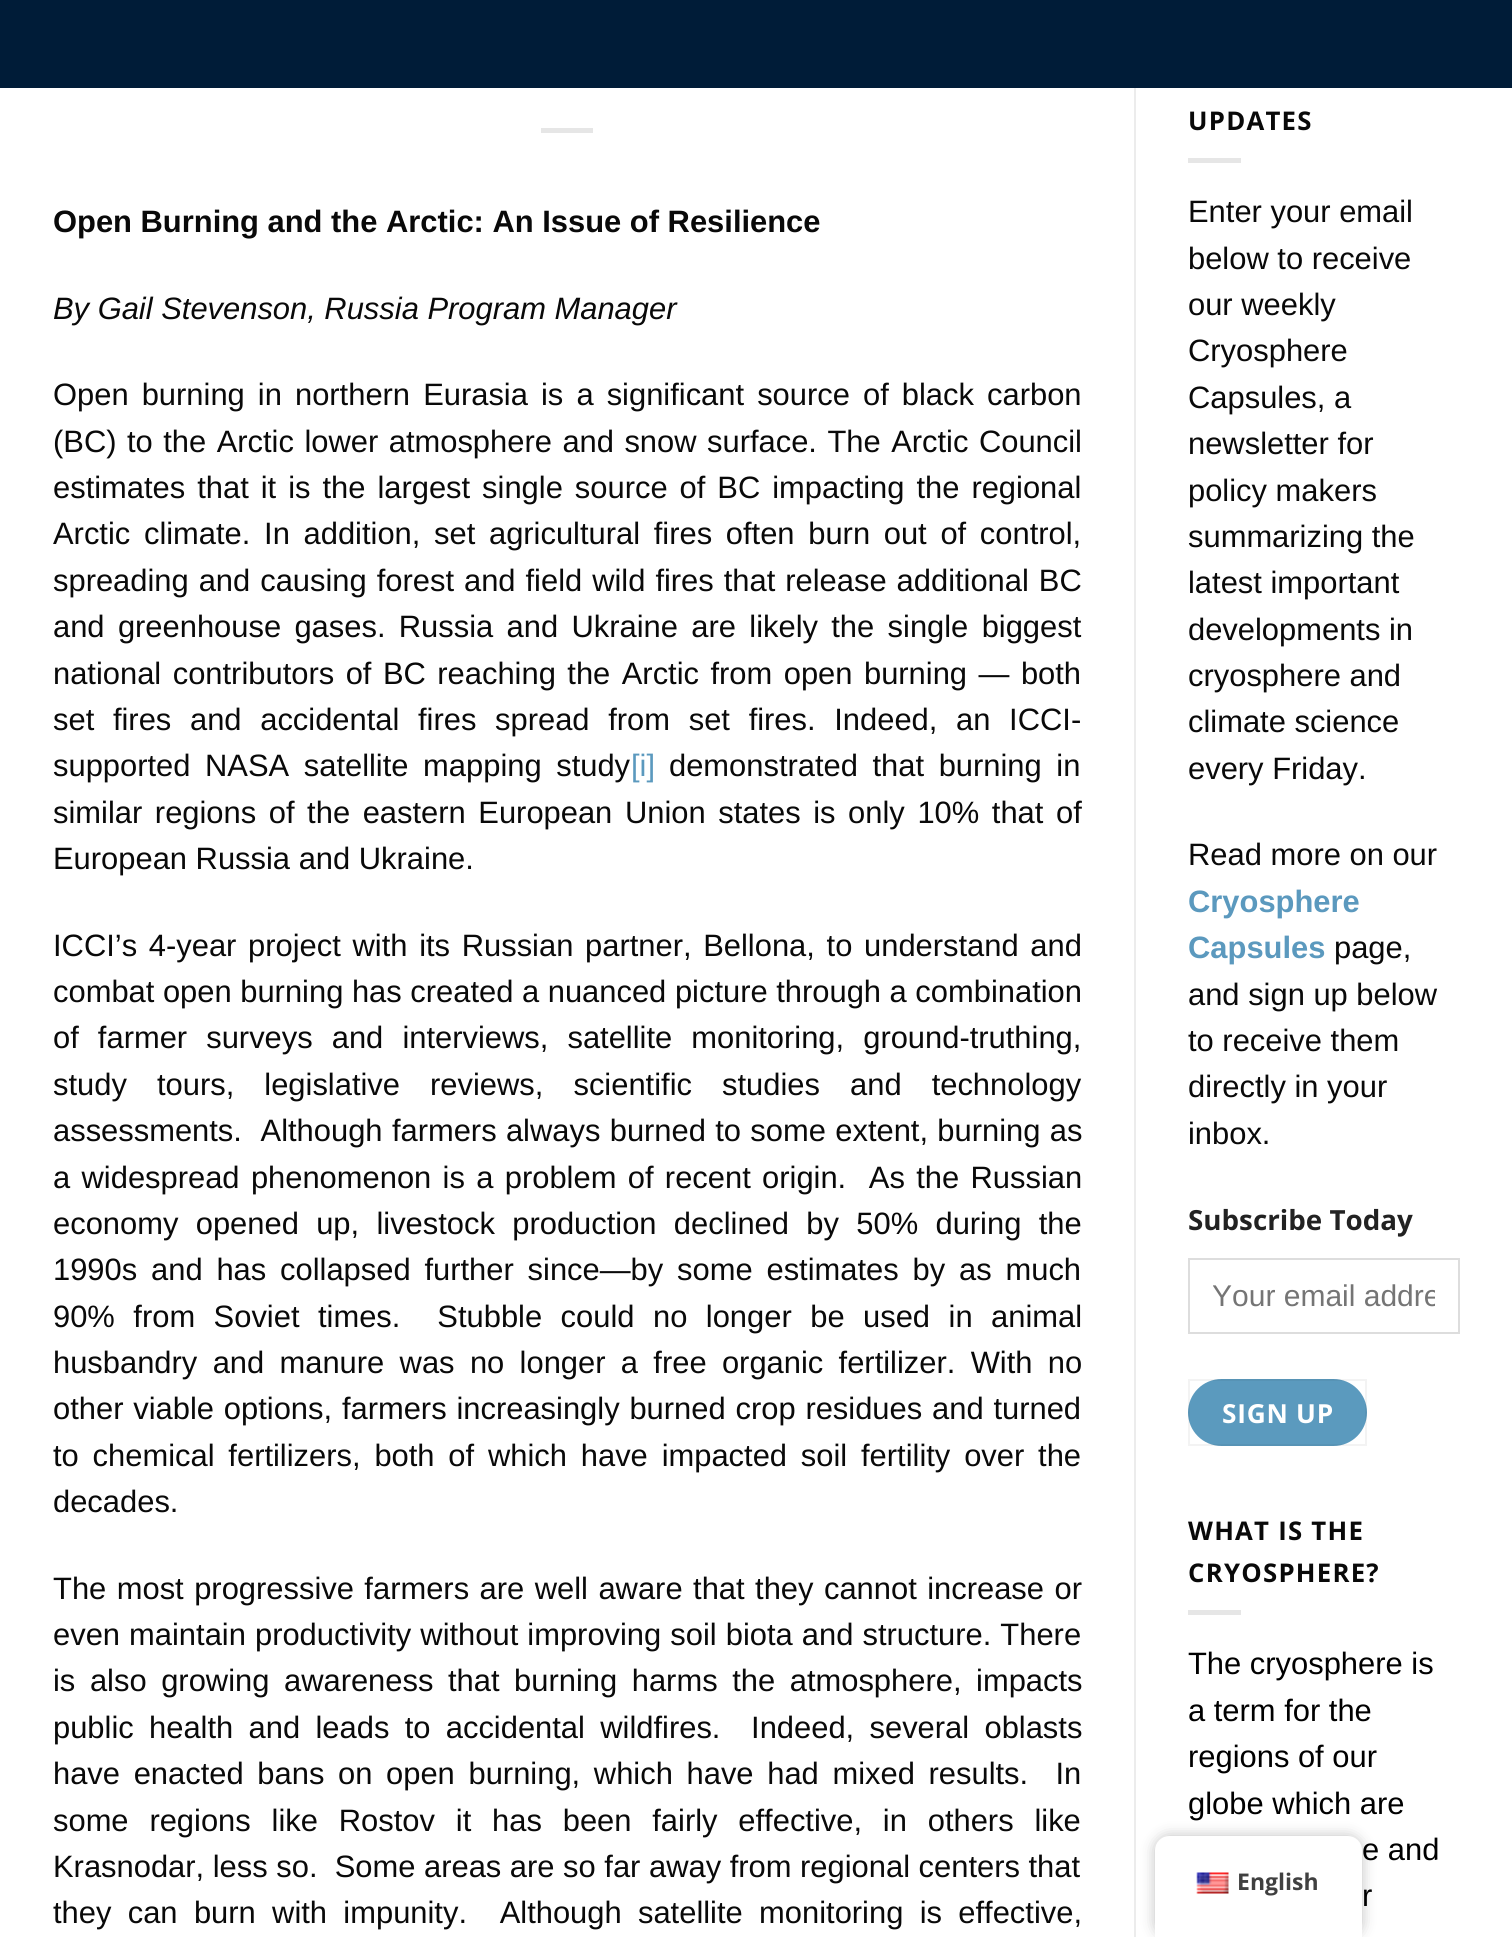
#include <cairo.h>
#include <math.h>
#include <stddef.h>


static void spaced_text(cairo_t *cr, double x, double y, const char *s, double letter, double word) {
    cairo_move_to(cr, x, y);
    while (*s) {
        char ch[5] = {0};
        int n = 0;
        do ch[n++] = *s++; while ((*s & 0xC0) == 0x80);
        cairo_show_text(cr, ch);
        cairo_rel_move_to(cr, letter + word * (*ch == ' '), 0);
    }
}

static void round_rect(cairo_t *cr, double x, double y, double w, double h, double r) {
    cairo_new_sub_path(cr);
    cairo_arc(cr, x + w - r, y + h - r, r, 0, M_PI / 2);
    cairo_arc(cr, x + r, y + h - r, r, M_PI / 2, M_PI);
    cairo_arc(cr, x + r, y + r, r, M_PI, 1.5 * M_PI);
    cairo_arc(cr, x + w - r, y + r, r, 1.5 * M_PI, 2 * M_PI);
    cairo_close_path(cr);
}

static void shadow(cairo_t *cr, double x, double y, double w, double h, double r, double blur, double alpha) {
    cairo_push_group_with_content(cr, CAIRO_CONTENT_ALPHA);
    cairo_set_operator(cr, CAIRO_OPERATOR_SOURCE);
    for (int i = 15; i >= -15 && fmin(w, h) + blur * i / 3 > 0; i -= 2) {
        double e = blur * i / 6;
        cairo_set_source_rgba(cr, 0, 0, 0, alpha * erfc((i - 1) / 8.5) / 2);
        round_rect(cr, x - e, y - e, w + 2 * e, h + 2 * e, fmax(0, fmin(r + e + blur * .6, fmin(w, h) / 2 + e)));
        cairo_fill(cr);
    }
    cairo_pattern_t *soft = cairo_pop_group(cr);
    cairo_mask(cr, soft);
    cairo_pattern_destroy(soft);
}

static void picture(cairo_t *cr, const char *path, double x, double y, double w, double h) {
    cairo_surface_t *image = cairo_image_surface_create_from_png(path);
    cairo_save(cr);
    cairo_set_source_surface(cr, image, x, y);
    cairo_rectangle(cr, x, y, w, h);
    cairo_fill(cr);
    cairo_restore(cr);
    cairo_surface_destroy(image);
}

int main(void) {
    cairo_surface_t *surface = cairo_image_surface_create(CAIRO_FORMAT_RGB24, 1512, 1937);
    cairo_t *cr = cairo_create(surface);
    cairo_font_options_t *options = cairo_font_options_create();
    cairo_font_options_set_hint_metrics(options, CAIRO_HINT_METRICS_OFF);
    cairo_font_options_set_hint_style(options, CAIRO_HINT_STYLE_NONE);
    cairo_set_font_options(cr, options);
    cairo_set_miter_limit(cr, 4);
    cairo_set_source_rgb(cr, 1, 1, 1);
    cairo_paint(cr);
    cairo_set_source_rgb(cr, 0, 0.11, 0.22);
    cairo_rectangle(cr, 0, 0, 1512, 88);
    cairo_fill(cr);
    cairo_set_source_rgb(cr, 0.902, 0.902, 0.902);
    cairo_rectangle(cr, 541, 128, 52, 5);
    cairo_fill(cr);
    cairo_select_font_face(cr, "Liberation Sans", CAIRO_FONT_SLANT_NORMAL, CAIRO_FONT_WEIGHT_BOLD);
    cairo_set_font_size(cr, 30.9);
    cairo_set_source_rgb(cr, 0.039, 0.039, 0.039);
    cairo_move_to(cr, 53, 232);
    cairo_show_text(cr, "Open Burning and the Arctic: An Issue of Resilience");
    cairo_select_font_face(cr, "Liberation Sans", CAIRO_FONT_SLANT_ITALIC, CAIRO_FONT_WEIGHT_NORMAL);
    cairo_move_to(cr, 53, 319);
    cairo_show_text(cr, "By Gail Stevenson, Russia Program Manager");
    cairo_select_font_face(cr, "Liberation Sans", CAIRO_FONT_SLANT_NORMAL, CAIRO_FONT_WEIGHT_NORMAL);
    spaced_text(cr, 53, 405, "Open burning in northern Eurasia is a significant source of black carbon", 0, 4.5);
    spaced_text(cr, 53, 452, "(BC) to the Arctic lower atmosphere and snow surface. The Arctic Council", 0, 1.9);
    spaced_text(cr, 53, 498, "estimates that it is the largest single source of BC impacting the regional", 0, 3.4);
    spaced_text(cr, 53, 544, "Arctic climate. In addition, set agricultural fires often burn out of control,", 0, 5.1);
    spaced_text(cr, 53, 591, "spreading and causing forest and field wild fires that release additional BC", 0, 1.4);
    spaced_text(cr, 53, 637, "and greenhouse gases. Russia and Ukraine are likely the single biggest", 0, 4.75);
    spaced_text(cr, 53, 684, "national contributors of BC reaching the Arctic from open burning — both", 0, 2.9);
    spaced_text(cr, 53, 730, "set fires and accidental fires spread from set fires. Indeed, an ICCI-", 0, 10.1);
    spaced_text(cr, 53, 776, "supported NASA satellite mapping study", 0, 6);
    cairo_set_source_rgb(cr, 0.357, 0.6, 0.745);
    cairo_move_to(cr, 631, 776);
    cairo_show_text(cr, "[i]");
    cairo_set_source_rgb(cr, 0.039, 0.039, 0.039);
    spaced_text(cr, 669, 776, "demonstrated that burning in", 0, 6);
    spaced_text(cr, 53, 823, "similar regions of the eastern European Union states is only 10% that of", 0, 4);
    cairo_move_to(cr, 53, 869);
    cairo_show_text(cr, "European Russia and Ukraine.");
    spaced_text(cr, 53, 956, "ICCI’s 4-year project with its Russian partner, Bellona, to understand and", 0, 3.1);
    cairo_move_to(cr, 53, 1002);
    cairo_show_text(cr, "combat open burning has created a nuanced picture through a combination");
    spaced_text(cr, 53, 1048, "of farmer surveys and interviews, satellite monitoring, ground-truthing,", 0, 10.5);
    spaced_text(cr, 53, 1095, "study tours, legislative reviews, scientific studies and technology", 0, 21.5);
    spaced_text(cr, 53, 1141, "assessments.  Although farmers always burned to some extent, burning as", 0, 0.75);
    spaced_text(cr, 53, 1188, "a widespread phenomenon is a problem of recent origin.  As the Russian", 0, 2.75);
    spaced_text(cr, 53, 1234, "economy opened up, livestock production declined by 50% during the", 0, 8.75);
    spaced_text(cr, 53, 1280, "1990s and has collapsed further since—by some estimates by as much", 0, 5.25);
    spaced_text(cr, 53, 1327, "90% from Soviet times.  Stubble could no longer be used in animal", 0, 9.9);
    spaced_text(cr, 53, 1373, "husbandry and manure was no longer a free organic fertilizer. With no", 0, 6.75);
    spaced_text(cr, 53, 1419, "other viable options, farmers increasingly burned crop residues and turned", 0, 1.25);
    spaced_text(cr, 53, 1466, "to chemical fertilizers, both of which have impacted soil fertility over the", 0, 5.25);
    cairo_move_to(cr, 53, 1512);
    cairo_show_text(cr, "decades.");
    spaced_text(cr, 53, 1599, "The most progressive farmers are well aware that they cannot increase or", 0, 1.9);
    spaced_text(cr, 53, 1645, "even maintain productivity without improving soil biota and structure. There", 0, 0.5);
    spaced_text(cr, 53, 1691, "is also growing awareness that burning harms the atmosphere, impacts", 0, 6);
    spaced_text(cr, 53, 1738, "public health and leads to accidental wildfires.  Indeed, several oblasts", 0, 6.75);
    spaced_text(cr, 53, 1784, "have enacted bans on open burning, which have had mixed results.  In", 0, 5.1);
    spaced_text(cr, 53, 1831, "some regions like Rostov it has been fairly effective, in others like", 0, 12.25);
    cairo_move_to(cr, 53, 1877);
    cairo_show_text(cr, "Krasnodar, less so.  Some areas are so far away from regional centers that");
    spaced_text(cr, 53, 1923, "they can burn with impunity.  Although satellite monitoring is effective,", 0, 7.75);
    cairo_set_source_rgb(cr, 0.925, 0.925, 0.925);
    cairo_rectangle(cr, 1134, 88, 2, 1849);
    cairo_fill(cr);
    cairo_select_font_face(cr, "Open Sans", CAIRO_FONT_SLANT_NORMAL, CAIRO_FONT_WEIGHT_BOLD);
    cairo_set_font_size(cr, 25.75);
    cairo_set_source_rgb(cr, 0.039, 0.039, 0.039);
    spaced_text(cr, 1188, 130, "UPDATES", 1.25, 0);
    cairo_set_source_rgb(cr, 0.902, 0.902, 0.902);
    cairo_rectangle(cr, 1188, 158, 53, 5);
    cairo_fill(cr);
    cairo_select_font_face(cr, "Liberation Sans", CAIRO_FONT_SLANT_NORMAL, CAIRO_FONT_WEIGHT_NORMAL);
    cairo_set_font_size(cr, 30.9);
    cairo_set_source_rgb(cr, 0.039, 0.039, 0.039);
    cairo_move_to(cr, 1188, 222);
    cairo_show_text(cr, "Enter your email");
    cairo_move_to(cr, 1188, 269);
    cairo_show_text(cr, "below to receive");
    cairo_move_to(cr, 1188, 315);
    cairo_show_text(cr, "our weekly");
    cairo_move_to(cr, 1188, 361);
    cairo_show_text(cr, "Cryosphere");
    cairo_move_to(cr, 1188, 408);
    cairo_show_text(cr, "Capsules, a");
    cairo_move_to(cr, 1188, 454);
    cairo_show_text(cr, "newsletter for");
    cairo_move_to(cr, 1188, 501);
    cairo_show_text(cr, "policy makers");
    cairo_move_to(cr, 1188, 547);
    cairo_show_text(cr, "summarizing the");
    cairo_move_to(cr, 1188, 593);
    cairo_show_text(cr, "latest important");
    cairo_move_to(cr, 1188, 640);
    cairo_show_text(cr, "developments in");
    cairo_move_to(cr, 1188, 686);
    cairo_show_text(cr, "cryosphere and");
    cairo_move_to(cr, 1188, 732);
    cairo_show_text(cr, "climate science");
    cairo_move_to(cr, 1188, 779);
    cairo_show_text(cr, "every Friday.");
    cairo_move_to(cr, 1188, 865);
    cairo_show_text(cr, "Read more on our");
    cairo_select_font_face(cr, "Liberation Sans", CAIRO_FONT_SLANT_NORMAL, CAIRO_FONT_WEIGHT_BOLD);
    cairo_set_source_rgb(cr, 0.357, 0.6, 0.745);
    cairo_move_to(cr, 1188, 912);
    cairo_show_text(cr, "Cryosphere");
    cairo_move_to(cr, 1188, 958);
    cairo_show_text(cr, "Capsules");
    cairo_select_font_face(cr, "Liberation Sans", CAIRO_FONT_SLANT_NORMAL, CAIRO_FONT_WEIGHT_NORMAL);
    cairo_set_source_rgb(cr, 0.039, 0.039, 0.039);
    cairo_move_to(cr, 1334, 958);
    cairo_show_text(cr, "page,");
    cairo_move_to(cr, 1188, 1005);
    cairo_show_text(cr, "and sign up below");
    cairo_move_to(cr, 1188, 1051);
    cairo_show_text(cr, "to receive them");
    cairo_move_to(cr, 1188, 1097);
    cairo_show_text(cr, "directly in your");
    cairo_move_to(cr, 1188, 1144);
    cairo_show_text(cr, "inbox.");
    cairo_select_font_face(cr, "Open Sans", CAIRO_FONT_SLANT_NORMAL, CAIRO_FONT_WEIGHT_BOLD);
    cairo_set_font_size(cr, 27.75);
    cairo_set_source_rgb(cr, 0.133, 0.133, 0.133);
    cairo_move_to(cr, 1188, 1230);
    cairo_show_text(cr, "Subscribe Today");
    cairo_rectangle(cr, 1189, 1259, 270, 74);
    cairo_set_source_rgb(cr, 0.867, 0.867, 0.867);
    cairo_stroke(cr);
    cairo_save(cr);
    cairo_rectangle(cr, 1213, 1278, 222, 36);
    cairo_clip(cr);
    cairo_select_font_face(cr, "Liberation Sans", CAIRO_FONT_SLANT_NORMAL, CAIRO_FONT_WEIGHT_NORMAL);
    cairo_set_font_size(cr, 30);
    cairo_set_source_rgb(cr, 0.459, 0.459, 0.459);
    cairo_move_to(cr, 1212, 1306);
    cairo_show_text(cr, "Your email addre");
    cairo_restore(cr);
    cairo_set_source_rgb(cr, 0.357, 0.604, 0.745);
    round_rect(cr, 1188, 1379, 179, 67, 33.5);
    cairo_fill(cr);
    cairo_rectangle(cr, 1189, 1380, 177, 65);
    cairo_set_source_rgba(cr, 0, 0, 0, 0.05);
    cairo_stroke(cr);
    cairo_set_font_size(cr, 26.25);
    cairo_set_source_rgb(cr, 1, 1, 1);
    spaced_text(cr, 1222, 1423, "SIGN UP", 0.75, 0);
    cairo_set_font_size(cr, 25.75);
    cairo_set_source_rgb(cr, 0.039, 0.039, 0.039);
    spaced_text(cr, 1188, 1540, "WHAT IS THE", 1.25, 0);
    spaced_text(cr, 1188, 1582, "CRYOSPHERE?", 1.25, 0);
    cairo_set_source_rgb(cr, 0.902, 0.902, 0.902);
    cairo_rectangle(cr, 1188, 1610, 53, 5);
    cairo_fill(cr);
    cairo_select_font_face(cr, "Liberation Sans", CAIRO_FONT_SLANT_NORMAL, CAIRO_FONT_WEIGHT_NORMAL);
    cairo_set_font_size(cr, 30.9);
    cairo_set_source_rgb(cr, 0, 0, 0);
    cairo_move_to(cr, 1188, 1674);
    cairo_show_text(cr, "The cryosphere is");
    cairo_move_to(cr, 1188, 1721);
    cairo_show_text(cr, "a term for the");
    cairo_move_to(cr, 1188, 1767);
    cairo_show_text(cr, "regions of our");
    cairo_move_to(cr, 1188, 1814);
    cairo_show_text(cr, "globe which are");
    cairo_move_to(cr, 1362, 1860);
    cairo_show_text(cr, "e and");
    cairo_move_to(cr, 1362, 1906);
    cairo_show_text(cr, "r");
    round_rect(cr, 1414, 1861, 58, 59, 29);
    cairo_set_source_rgb(cr, 1, 1, 1);
    cairo_set_line_width(cr, 4);
    cairo_stroke(cr);
    cairo_set_source_rgb(cr, 0, 0, 0);
    shadow(cr, 1155, 1836, 207, 101, 14, 7, 0.25);
    cairo_set_source_rgb(cr, 1, 1, 1);
    cairo_new_path(cr);
    cairo_move_to(cr, 1169, 1836);
    cairo_line_to(cr, 1348, 1836);
    cairo_curve_to(cr, 1355.5, 1836, 1362, 1842.5, 1362, 1850);
    cairo_line_to(cr, 1362, 1937);
    cairo_line_to(cr, 1155, 1937);
    cairo_line_to(cr, 1155, 1850);
    cairo_curve_to(cr, 1155, 1842.5, 1161.5, 1836, 1169, 1836);
    cairo_close_path(cr);
    cairo_fill(cr);
    picture(cr, "img1.png", 1196, 1872, 33, 22);
    cairo_select_font_face(cr, "Open Sans", CAIRO_FONT_SLANT_NORMAL, CAIRO_FONT_WEIGHT_BOLD);
    cairo_set_font_size(cr, 23);
    cairo_set_source_rgb(cr, 0.251, 0.251, 0.251);
    cairo_move_to(cr, 1237, 1890);
    cairo_show_text(cr, "English");
    cairo_surface_write_to_png(surface, "page.png");
    cairo_font_options_destroy(options);
    cairo_destroy(cr);
    cairo_surface_destroy(surface);
    return 0;
}
